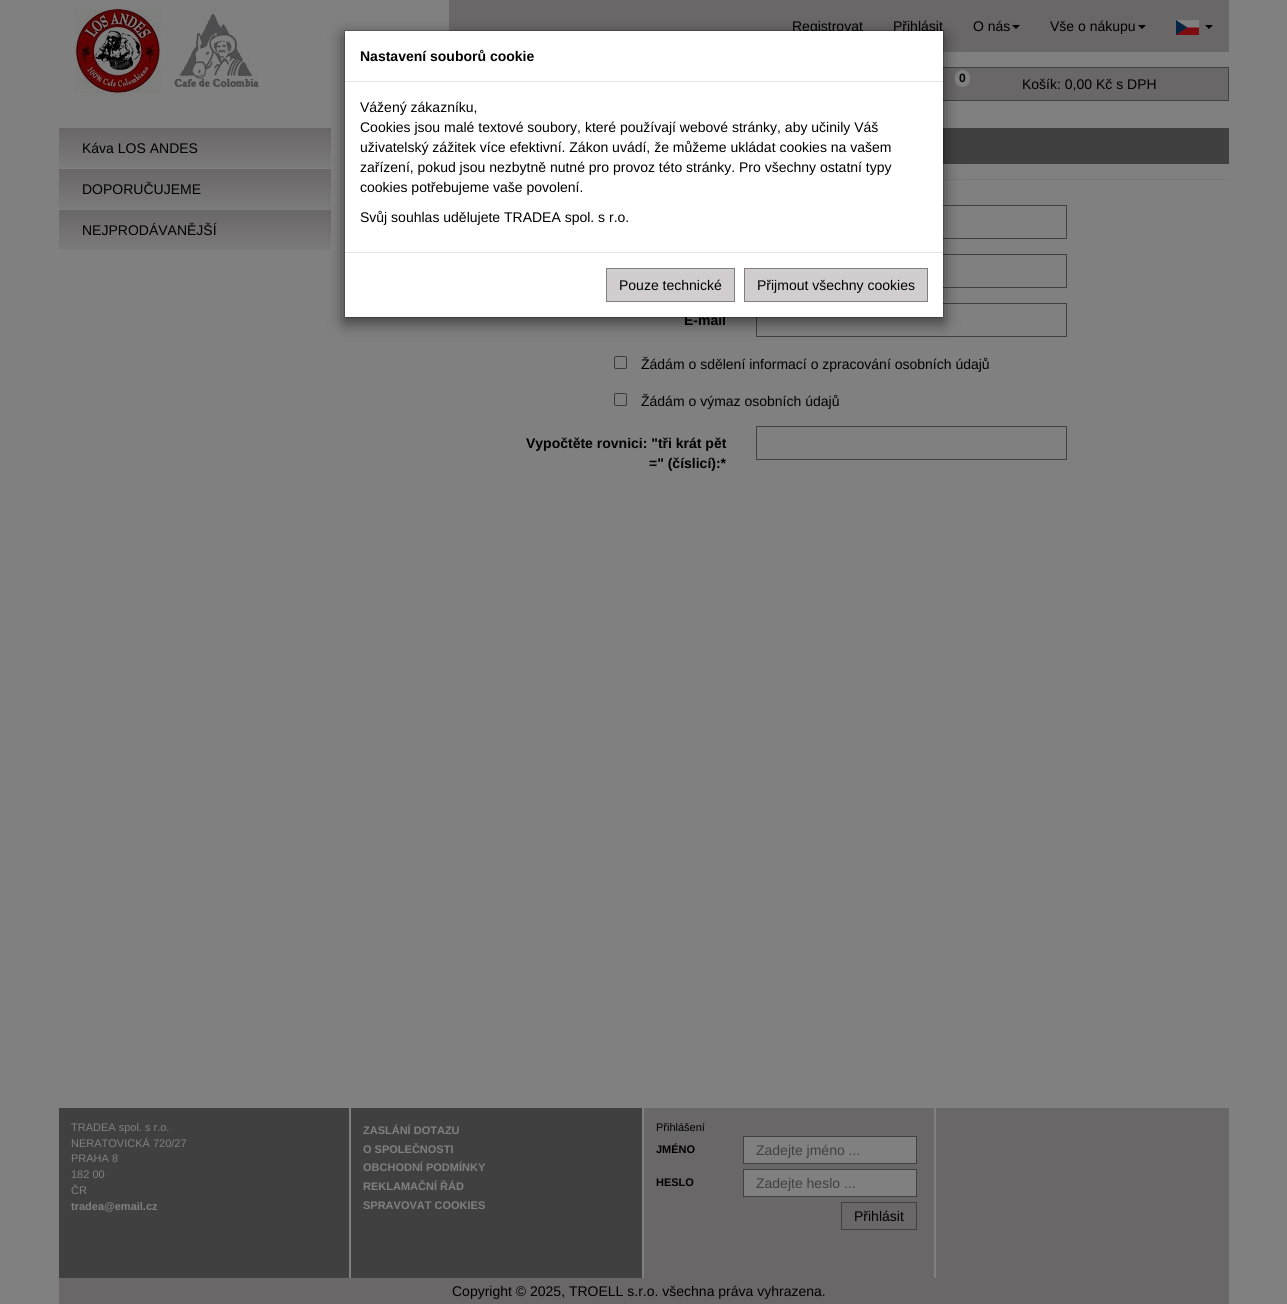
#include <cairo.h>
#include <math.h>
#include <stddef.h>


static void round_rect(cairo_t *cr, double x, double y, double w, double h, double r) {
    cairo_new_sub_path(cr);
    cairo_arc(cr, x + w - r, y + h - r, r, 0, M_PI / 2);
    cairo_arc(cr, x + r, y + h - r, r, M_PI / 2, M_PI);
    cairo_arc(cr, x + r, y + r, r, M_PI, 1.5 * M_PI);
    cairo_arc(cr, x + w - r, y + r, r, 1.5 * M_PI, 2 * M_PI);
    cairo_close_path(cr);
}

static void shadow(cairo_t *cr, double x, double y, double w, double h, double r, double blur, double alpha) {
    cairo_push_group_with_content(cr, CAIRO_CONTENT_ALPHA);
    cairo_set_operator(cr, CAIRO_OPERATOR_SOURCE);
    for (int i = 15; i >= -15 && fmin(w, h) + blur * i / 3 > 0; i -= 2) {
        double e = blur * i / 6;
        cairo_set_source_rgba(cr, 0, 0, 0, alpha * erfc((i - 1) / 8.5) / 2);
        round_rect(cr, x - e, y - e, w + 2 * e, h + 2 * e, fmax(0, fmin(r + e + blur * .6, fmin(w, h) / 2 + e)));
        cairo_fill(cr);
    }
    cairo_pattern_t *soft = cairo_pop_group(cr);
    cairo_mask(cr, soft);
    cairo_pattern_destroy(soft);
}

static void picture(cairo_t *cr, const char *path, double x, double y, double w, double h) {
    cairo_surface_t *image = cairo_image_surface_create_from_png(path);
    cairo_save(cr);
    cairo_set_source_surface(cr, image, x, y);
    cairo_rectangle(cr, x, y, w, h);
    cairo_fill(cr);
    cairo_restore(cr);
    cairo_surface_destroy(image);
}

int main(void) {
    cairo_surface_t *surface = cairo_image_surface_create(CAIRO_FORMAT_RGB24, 1287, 1304);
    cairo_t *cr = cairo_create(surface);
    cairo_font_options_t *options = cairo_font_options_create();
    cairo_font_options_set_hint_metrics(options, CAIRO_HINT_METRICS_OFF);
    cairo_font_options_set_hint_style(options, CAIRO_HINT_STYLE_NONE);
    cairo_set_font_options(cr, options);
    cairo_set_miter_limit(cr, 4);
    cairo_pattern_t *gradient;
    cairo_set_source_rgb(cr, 0.502, 0.502, 0.502);
    cairo_paint(cr);
    picture(cr, "img1.png", 74, 7, 185, 90);
    cairo_set_source_rgb(cr, 0.412, 0.404, 0.408);
    cairo_rectangle(cr, 449, 0, 780, 52);
    cairo_fill(cr);
    cairo_select_font_face(cr, "Liberation Sans", CAIRO_FONT_SLANT_NORMAL, CAIRO_FONT_WEIGHT_NORMAL);
    cairo_set_font_size(cr, 14);
    cairo_set_source_rgb(cr, 0, 0, 0);
    cairo_move_to(cr, 792, 31);
    cairo_show_text(cr, "Registrovat");
    cairo_move_to(cr, 893, 31);
    cairo_show_text(cr, "Přihlásit");
    cairo_move_to(cr, 973, 31);
    cairo_show_text(cr, "O nás");
    cairo_new_path(cr);
    cairo_move_to(cr, 1012, 25);
    cairo_line_to(cr, 1020, 25);
    cairo_line_to(cr, 1016, 29);
    cairo_close_path(cr);
    cairo_fill(cr);
    cairo_move_to(cr, 1050, 31);
    cairo_show_text(cr, "Vše o nákupu");
    cairo_new_path(cr);
    cairo_move_to(cr, 1138, 25);
    cairo_line_to(cr, 1146, 25);
    cairo_line_to(cr, 1142, 29);
    cairo_close_path(cr);
    cairo_fill(cr);
    picture(cr, "img2.png", 1176, 20, 23, 15);
    cairo_new_path(cr);
    cairo_move_to(cr, 1205, 25);
    cairo_line_to(cr, 1213, 25);
    cairo_line_to(cr, 1209, 29);
    cairo_close_path(cr);
    cairo_fill(cr);
    cairo_set_source_rgb(cr, 0.412, 0.404, 0.408);
    cairo_rectangle(cr, 943, 68, 285, 32);
    cairo_fill(cr);
    cairo_rectangle(cr, 919.5, 67.5, 309, 33);
    cairo_set_source_rgb(cr, 0.251, 0.251, 0.251);
    cairo_set_line_width(cr, 1);
    cairo_stroke(cr);
    cairo_set_source_rgb(cr, 0.502, 0.502, 0.502);
    round_rect(cr, 955, 70, 15, 17, 7.5);
    cairo_fill(cr);
    cairo_select_font_face(cr, "Liberation Sans", CAIRO_FONT_SLANT_NORMAL, CAIRO_FONT_WEIGHT_BOLD);
    cairo_set_font_size(cr, 12);
    cairo_set_source_rgb(cr, 0, 0, 0);
    cairo_move_to(cr, 959, 82);
    cairo_show_text(cr, "0");
    cairo_select_font_face(cr, "Liberation Sans", CAIRO_FONT_SLANT_NORMAL, CAIRO_FONT_WEIGHT_NORMAL);
    cairo_set_font_size(cr, 14);
    cairo_move_to(cr, 1022, 89);
    cairo_show_text(cr, "Košík: 0,00 Kč s DPH");
    gradient = cairo_pattern_create_linear(195, 168, 195, 128);
    cairo_pattern_add_color_stop_rgba(gradient, 0, 0.486, 0.482, 0.482, 1);
    cairo_pattern_add_color_stop_rgba(gradient, 1, 0.412, 0.404, 0.408, 1);
    cairo_set_source(cr, gradient);
    cairo_pattern_destroy(gradient);
    cairo_rectangle(cr, 59, 128, 272, 40);
    cairo_fill(cr);
    cairo_set_source_rgb(cr, 0, 0, 0);
    cairo_move_to(cr, 82, 153);
    cairo_show_text(cr, "Káva LOS ANDES");
    gradient = cairo_pattern_create_linear(195, 209, 195, 169);
    cairo_pattern_add_color_stop_rgba(gradient, 0, 0.486, 0.482, 0.482, 1);
    cairo_pattern_add_color_stop_rgba(gradient, 1, 0.412, 0.404, 0.408, 1);
    cairo_set_source(cr, gradient);
    cairo_pattern_destroy(gradient);
    cairo_rectangle(cr, 59, 169, 272, 40);
    cairo_fill(cr);
    cairo_set_source_rgb(cr, 0, 0, 0);
    cairo_move_to(cr, 82, 194);
    cairo_show_text(cr, "DOPORUČUJEME");
    gradient = cairo_pattern_create_linear(195, 250, 195, 210);
    cairo_pattern_add_color_stop_rgba(gradient, 0, 0.486, 0.482, 0.482, 1);
    cairo_pattern_add_color_stop_rgba(gradient, 1, 0.412, 0.404, 0.408, 1);
    cairo_set_source(cr, gradient);
    cairo_pattern_destroy(gradient);
    cairo_rectangle(cr, 59, 210, 272, 40);
    cairo_fill(cr);
    cairo_set_source_rgb(cr, 0, 0, 0);
    cairo_move_to(cr, 82, 235);
    cairo_show_text(cr, "NEJPRODÁVANĚJŠÍ");
    cairo_set_source_rgb(cr, 0.251, 0.251, 0.251);
    cairo_rectangle(cr, 943, 128, 286, 36);
    cairo_fill(cr);
    cairo_set_source_rgb(cr, 0.467, 0.467, 0.467);
    cairo_rectangle(cr, 943, 179, 286, 1);
    cairo_fill(cr);
    cairo_rectangle(cr, 756.5, 205.5, 310, 33);
    cairo_set_source_rgb(cr, 0.251, 0.251, 0.251);
    cairo_stroke(cr);
    cairo_rectangle(cr, 756.5, 254.5, 310, 33);
    cairo_stroke(cr);
    cairo_select_font_face(cr, "Liberation Sans", CAIRO_FONT_SLANT_NORMAL, CAIRO_FONT_WEIGHT_BOLD);
    cairo_set_source_rgb(cr, 0, 0, 0);
    cairo_move_to(cr, 684, 325);
    cairo_show_text(cr, "E-mail");
    cairo_rectangle(cr, 756.5, 303.5, 310, 33);
    cairo_set_source_rgb(cr, 0.251, 0.251, 0.251);
    cairo_stroke(cr);
    round_rect(cr, 614.5, 356.5, 12, 12, 1.5);
    cairo_set_source_rgb(cr, 0.231, 0.231, 0.231);
    cairo_stroke(cr);
    cairo_select_font_face(cr, "Liberation Sans", CAIRO_FONT_SLANT_NORMAL, CAIRO_FONT_WEIGHT_NORMAL);
    cairo_set_source_rgb(cr, 0, 0, 0);
    cairo_move_to(cr, 641, 369);
    cairo_show_text(cr, "Žádám o sdělení informací o zpracování osobních údajů");
    round_rect(cr, 614.5, 393.5, 12, 12, 1.5);
    cairo_set_source_rgb(cr, 0.231, 0.231, 0.231);
    cairo_stroke(cr);
    cairo_set_source_rgb(cr, 0, 0, 0);
    cairo_move_to(cr, 641, 406);
    cairo_show_text(cr, "Žádám o výmaz osobních údajů");
    cairo_select_font_face(cr, "Liberation Sans", CAIRO_FONT_SLANT_NORMAL, CAIRO_FONT_WEIGHT_BOLD);
    cairo_move_to(cr, 526, 448);
    cairo_show_text(cr, "Vypočtěte rovnici: \"tři krát pět");
    cairo_move_to(cr, 649, 468);
    cairo_show_text(cr, "=\" (číslicí):*");
    cairo_rectangle(cr, 756.5, 426.5, 310, 33);
    cairo_set_source_rgb(cr, 0.251, 0.251, 0.251);
    cairo_stroke(cr);
    cairo_rectangle(cr, 59, 1108, 290, 170);
    cairo_fill(cr);
    cairo_select_font_face(cr, "Liberation Sans", CAIRO_FONT_SLANT_NORMAL, CAIRO_FONT_WEIGHT_NORMAL);
    cairo_set_font_size(cr, 11);
    cairo_set_source_rgb(cr, 0.502, 0.502, 0.502);
    cairo_move_to(cr, 71, 1131);
    cairo_show_text(cr, "TRADEA spol. s r.o.");
    cairo_move_to(cr, 71, 1147);
    cairo_show_text(cr, "NERATOVICKÁ 720/27");
    cairo_move_to(cr, 71, 1162);
    cairo_show_text(cr, "PRAHA 8");
    cairo_move_to(cr, 71, 1178);
    cairo_show_text(cr, "182 00");
    cairo_move_to(cr, 71, 1194);
    cairo_show_text(cr, "ČR");
    cairo_select_font_face(cr, "Liberation Sans", CAIRO_FONT_SLANT_NORMAL, CAIRO_FONT_WEIGHT_BOLD);
    cairo_move_to(cr, 71, 1210);
    cairo_show_text(cr, "tradea@email.cz");
    cairo_set_source_rgb(cr, 0.251, 0.251, 0.251);
    cairo_rectangle(cr, 351, 1108, 291, 170);
    cairo_fill(cr);
    cairo_set_source_rgb(cr, 0.502, 0.502, 0.502);
    cairo_move_to(cr, 363, 1134);
    cairo_show_text(cr, "ZASLÁNÍ DOTAZU");
    cairo_move_to(cr, 363, 1153);
    cairo_show_text(cr, "O SPOLEČNOSTI");
    cairo_move_to(cr, 363, 1171);
    cairo_show_text(cr, "OBCHODNÍ PODMÍNKY");
    cairo_move_to(cr, 363, 1190);
    cairo_show_text(cr, "REKLAMAČNÍ ŘÁD");
    cairo_move_to(cr, 363, 1209);
    cairo_show_text(cr, "SPRAVOVAT COOKIES");
    cairo_set_source_rgb(cr, 0.412, 0.404, 0.408);
    cairo_rectangle(cr, 644, 1108, 290, 170);
    cairo_fill(cr);
    cairo_select_font_face(cr, "Liberation Sans", CAIRO_FONT_SLANT_NORMAL, CAIRO_FONT_WEIGHT_NORMAL);
    cairo_set_source_rgb(cr, 0, 0, 0);
    cairo_move_to(cr, 656, 1131);
    cairo_show_text(cr, "Přihlášení");
    cairo_select_font_face(cr, "Liberation Sans", CAIRO_FONT_SLANT_NORMAL, CAIRO_FONT_WEIGHT_BOLD);
    cairo_move_to(cr, 656, 1153);
    cairo_show_text(cr, "JMÉNO");
    cairo_set_source_rgb(cr, 0.502, 0.502, 0.502);
    cairo_rectangle(cr, 743.5, 1136.5, 173, 27);
    cairo_fill_preserve(cr);
    cairo_set_source_rgb(cr, 0.251, 0.251, 0.251);
    cairo_stroke(cr);
    cairo_select_font_face(cr, "Liberation Sans", CAIRO_FONT_SLANT_NORMAL, CAIRO_FONT_WEIGHT_NORMAL);
    cairo_set_font_size(cr, 14);
    cairo_move_to(cr, 756, 1155);
    cairo_show_text(cr, "Zadejte jméno ...");
    cairo_select_font_face(cr, "Liberation Sans", CAIRO_FONT_SLANT_NORMAL, CAIRO_FONT_WEIGHT_BOLD);
    cairo_set_font_size(cr, 11);
    cairo_set_source_rgb(cr, 0, 0, 0);
    cairo_move_to(cr, 656, 1186);
    cairo_show_text(cr, "HESLO");
    cairo_set_source_rgb(cr, 0.502, 0.502, 0.502);
    cairo_rectangle(cr, 743.5, 1169.5, 173, 27);
    cairo_fill_preserve(cr);
    cairo_set_source_rgb(cr, 0.251, 0.251, 0.251);
    cairo_stroke(cr);
    cairo_select_font_face(cr, "Liberation Sans", CAIRO_FONT_SLANT_NORMAL, CAIRO_FONT_WEIGHT_NORMAL);
    cairo_set_font_size(cr, 14);
    cairo_move_to(cr, 756, 1188);
    cairo_show_text(cr, "Zadejte heslo ...");
    cairo_rectangle(cr, 841.5, 1202.5, 75, 27);
    cairo_stroke(cr);
    cairo_set_source_rgb(cr, 0, 0, 0);
    cairo_move_to(cr, 854, 1221);
    cairo_show_text(cr, "Přihlásit");
    cairo_set_source_rgb(cr, 0.412, 0.404, 0.408);
    cairo_rectangle(cr, 936, 1108, 293, 170);
    cairo_fill(cr);
    cairo_rectangle(cr, 59, 1278, 1170, 26);
    cairo_fill(cr);
    cairo_set_source_rgb(cr, 0, 0, 0);
    cairo_move_to(cr, 452, 1296);
    cairo_show_text(cr, "Copyright © 2025, TROELL s.r.o. všechna práva vyhrazena.");
    cairo_set_source_rgb(cr, 0, 0, 0);
    shadow(cr, 344, 35, 600, 288, 0, 7.5, 0.5);
    cairo_set_source_rgb(cr, 1, 1, 1);
    cairo_rectangle(cr, 345, 31, 598, 286);
    cairo_fill(cr);
    cairo_rectangle(cr, 344.5, 30.5, 599, 287);
    cairo_set_source_rgba(cr, 0, 0, 0, 0.2);
    cairo_stroke(cr);
    cairo_set_source_rgb(cr, 0.898, 0.898, 0.898);
    cairo_rectangle(cr, 345, 81, 598, 1);
    cairo_fill(cr);
    cairo_select_font_face(cr, "Liberation Sans", CAIRO_FONT_SLANT_NORMAL, CAIRO_FONT_WEIGHT_BOLD);
    cairo_set_source_rgb(cr, 0, 0, 0);
    cairo_move_to(cr, 360, 61);
    cairo_show_text(cr, "Nastavení souborů cookie");
    cairo_select_font_face(cr, "Liberation Sans", CAIRO_FONT_SLANT_NORMAL, CAIRO_FONT_WEIGHT_NORMAL);
    cairo_move_to(cr, 360, 112);
    cairo_show_text(cr, "Vážený zákazníku,");
    cairo_move_to(cr, 360, 132);
    cairo_show_text(cr, "Cookies jsou malé textové soubory, které používají webové stránky, aby učinily Váš");
    cairo_move_to(cr, 360, 152);
    cairo_show_text(cr, "uživatelský zážitek více efektivní. Zákon uvádí, že můžeme ukládat cookies na vašem");
    cairo_move_to(cr, 360, 172);
    cairo_show_text(cr, "zařízení, pokud jsou nezbytně nutné pro provoz této stránky. Pro všechny ostatní typy");
    cairo_move_to(cr, 360, 192);
    cairo_show_text(cr, "cookies potřebujeme vaše povolení.");
    cairo_move_to(cr, 360, 222);
    cairo_show_text(cr, "Svůj souhlas udělujete TRADEA spol. s r.o.");
    cairo_set_source_rgb(cr, 0.898, 0.898, 0.898);
    cairo_rectangle(cr, 345, 252, 598, 1);
    cairo_fill(cr);
    cairo_set_source_rgb(cr, 0.824, 0.808, 0.816);
    cairo_rectangle(cr, 606.5, 268.5, 128, 33);
    cairo_fill_preserve(cr);
    cairo_set_source_rgb(cr, 0.502, 0.502, 0.502);
    cairo_stroke(cr);
    cairo_set_source_rgb(cr, 0, 0, 0);
    cairo_move_to(cr, 619, 290);
    cairo_show_text(cr, "Pouze technické");
    cairo_set_source_rgb(cr, 0.824, 0.808, 0.816);
    cairo_rectangle(cr, 744.5, 268.5, 183, 33);
    cairo_fill_preserve(cr);
    cairo_set_source_rgb(cr, 0.502, 0.502, 0.502);
    cairo_stroke(cr);
    cairo_set_source_rgb(cr, 0, 0, 0);
    cairo_move_to(cr, 757, 290);
    cairo_show_text(cr, "Přijmout všechny cookies");
    cairo_surface_write_to_png(surface, "page.png");
    cairo_font_options_destroy(options);
    cairo_destroy(cr);
    cairo_surface_destroy(surface);
    return 0;
}
